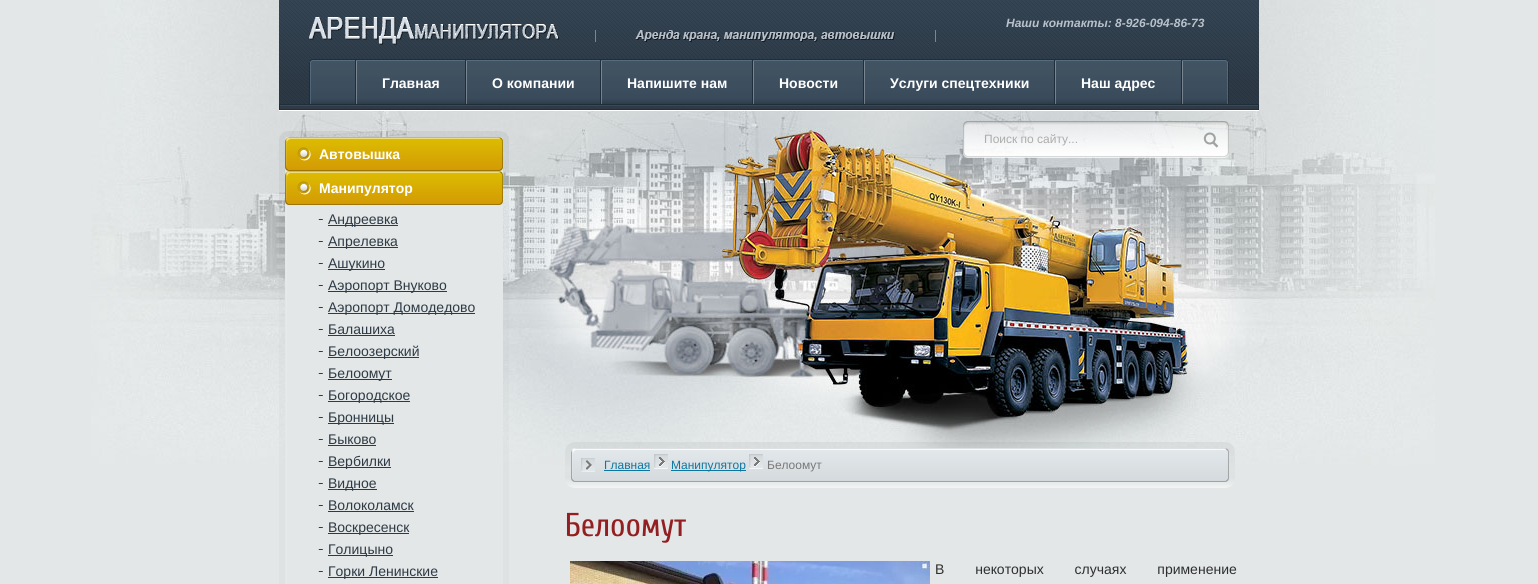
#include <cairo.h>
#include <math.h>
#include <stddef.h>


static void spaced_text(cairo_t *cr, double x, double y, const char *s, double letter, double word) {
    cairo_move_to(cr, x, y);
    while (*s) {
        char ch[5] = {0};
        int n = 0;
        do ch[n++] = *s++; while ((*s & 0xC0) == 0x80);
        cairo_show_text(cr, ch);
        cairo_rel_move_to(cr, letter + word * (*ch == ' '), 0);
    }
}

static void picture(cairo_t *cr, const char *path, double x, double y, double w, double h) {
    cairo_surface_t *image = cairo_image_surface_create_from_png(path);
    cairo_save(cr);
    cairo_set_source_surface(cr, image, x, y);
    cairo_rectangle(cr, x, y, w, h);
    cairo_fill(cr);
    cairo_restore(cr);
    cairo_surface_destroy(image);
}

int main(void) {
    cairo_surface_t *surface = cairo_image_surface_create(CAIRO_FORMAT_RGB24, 1538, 584);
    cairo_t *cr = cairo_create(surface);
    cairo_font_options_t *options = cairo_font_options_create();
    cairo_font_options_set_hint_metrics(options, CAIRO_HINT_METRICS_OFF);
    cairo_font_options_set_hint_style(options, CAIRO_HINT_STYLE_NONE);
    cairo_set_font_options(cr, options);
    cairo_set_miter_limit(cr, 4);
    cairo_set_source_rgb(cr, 0.89, 0.906, 0.906);
    cairo_paint(cr);
    picture(cr, "img1.png", 91, 0, 1344, 465);
    picture(cr, "img2.png", 279, 0, 980, 110);
    cairo_set_source_rgb(cr, 1, 1, 1);
    cairo_rectangle(cr, 279, 110, 980, 1);
    cairo_fill(cr);
    picture(cr, "img3.png", 309, 17, 250, 28);
    cairo_select_font_face(cr, "Liberation Sans", CAIRO_FONT_SLANT_ITALIC, CAIRO_FONT_WEIGHT_BOLD);
    cairo_set_font_size(cr, 12);
    cairo_set_source_rgb(cr, 0.722, 0.757, 0.796);
    cairo_move_to(cr, 1006, 27);
    cairo_show_text(cr, "Наши контакты: 8-926-094-86-73");
    picture(cr, "img4.png", 595, 30, 341, 12);
    picture(cr, "img5.png", 309, 59, 920, 45);
    picture(cr, "img6.png", 355, 60, 2, 44);
    cairo_select_font_face(cr, "Liberation Sans", CAIRO_FONT_SLANT_NORMAL, CAIRO_FONT_WEIGHT_BOLD);
    cairo_set_font_size(cr, 14);
    cairo_set_source_rgb(cr, 1, 1, 1);
    cairo_move_to(cr, 382, 88);
    cairo_show_text(cr, "Главная");
    picture(cr, "img6.png", 465, 60, 2, 44);
    cairo_move_to(cr, 492, 88);
    cairo_show_text(cr, "О компании");
    picture(cr, "img6.png", 600, 60, 2, 44);
    cairo_move_to(cr, 627, 88);
    cairo_show_text(cr, "Напишите нам");
    picture(cr, "img6.png", 752, 60, 2, 44);
    cairo_move_to(cr, 779, 88);
    cairo_show_text(cr, "Новости");
    picture(cr, "img6.png", 863, 60, 2, 44);
    cairo_move_to(cr, 890, 88);
    cairo_show_text(cr, "Услуги спецтехники");
    picture(cr, "img6.png", 1054, 60, 2, 44);
    cairo_move_to(cr, 1081, 88);
    cairo_show_text(cr, "Наш адрес");
    picture(cr, "img6.png", 1181, 60, 2, 44);
    picture(cr, "img7.png", 963, 121, 266, 37);
    cairo_select_font_face(cr, "Liberation Sans", CAIRO_FONT_SLANT_NORMAL, CAIRO_FONT_WEIGHT_NORMAL);
    cairo_set_font_size(cr, 12);
    cairo_set_source_rgb(cr, 0.675, 0.675, 0.675);
    cairo_move_to(cr, 984, 143);
    cairo_show_text(cr, "Поиск по сайту...");
    picture(cr, "img8.png", 279, 131, 230, 118);
    picture(cr, "img9.png", 285, 137, 218, 29);
    picture(cr, "img10.png", 285, 166, 218, 5);
    picture(cr, "img11.png", 297, 147, 14, 14);
    cairo_select_font_face(cr, "Liberation Sans", CAIRO_FONT_SLANT_NORMAL, CAIRO_FONT_WEIGHT_BOLD);
    cairo_set_font_size(cr, 14);
    cairo_set_source_rgb(cr, 1, 1, 1);
    cairo_move_to(cr, 319, 159);
    cairo_show_text(cr, "Автовышка");
    picture(cr, "img12.png", 285, 171, 218, 29);
    picture(cr, "img10.png", 285, 200, 218, 5);
    picture(cr, "img11.png", 297, 181, 14, 14);
    cairo_move_to(cr, 319, 193);
    cairo_show_text(cr, "Манипулятор");
    picture(cr, "img13.png", 318, 219, 5, 1);
    cairo_set_source_rgb(cr, 0.18, 0.227, 0.271);
    cairo_rectangle(cr, 328, 225, 70, 1);
    cairo_fill(cr);
    cairo_select_font_face(cr, "Liberation Sans", CAIRO_FONT_SLANT_NORMAL, CAIRO_FONT_WEIGHT_NORMAL);
    cairo_move_to(cr, 328, 224);
    cairo_show_text(cr, "Андреевка");
    picture(cr, "img13.png", 318, 241, 5, 1);
    cairo_rectangle(cr, 328, 247, 70, 1);
    cairo_fill(cr);
    cairo_move_to(cr, 328, 246);
    cairo_show_text(cr, "Апрелевка");
    picture(cr, "img14.png", 279, 249, 230, 335);
    picture(cr, "img13.png", 318, 263, 5, 1);
    cairo_rectangle(cr, 328, 269, 57, 1);
    cairo_fill(cr);
    cairo_move_to(cr, 328, 268);
    cairo_show_text(cr, "Ашукино");
    picture(cr, "img13.png", 318, 285, 5, 1);
    cairo_rectangle(cr, 328, 291, 119, 1);
    cairo_fill(cr);
    cairo_move_to(cr, 328, 290);
    cairo_show_text(cr, "Аэропорт Внуково");
    picture(cr, "img13.png", 318, 307, 5, 1);
    cairo_rectangle(cr, 328, 313, 147, 1);
    cairo_fill(cr);
    cairo_move_to(cr, 328, 312);
    cairo_show_text(cr, "Аэропорт Домодедово");
    picture(cr, "img13.png", 318, 329, 5, 1);
    cairo_move_to(cr, 328, 334);
    cairo_show_text(cr, "Балашиха");
    cairo_rectangle(cr, 328, 335, 67, 1);
    cairo_fill(cr);
    picture(cr, "img13.png", 318, 351, 5, 1);
    cairo_rectangle(cr, 328, 357, 91, 1);
    cairo_fill(cr);
    cairo_move_to(cr, 328, 356);
    cairo_show_text(cr, "Белоозерский");
    picture(cr, "img13.png", 318, 373, 5, 1);
    cairo_rectangle(cr, 328, 379, 64, 1);
    cairo_fill(cr);
    cairo_move_to(cr, 328, 378);
    cairo_show_text(cr, "Белоомут");
    picture(cr, "img13.png", 318, 395, 5, 1);
    cairo_rectangle(cr, 328, 401, 82, 1);
    cairo_fill(cr);
    cairo_move_to(cr, 328, 400);
    cairo_show_text(cr, "Богородское");
    picture(cr, "img13.png", 318, 417, 5, 1);
    cairo_rectangle(cr, 328, 423, 66, 1);
    cairo_fill(cr);
    cairo_move_to(cr, 328, 422);
    cairo_show_text(cr, "Бронницы");
    picture(cr, "img13.png", 318, 439, 5, 1);
    cairo_move_to(cr, 328, 444);
    cairo_show_text(cr, "Быково");
    cairo_rectangle(cr, 328, 445, 48, 1);
    cairo_fill(cr);
    picture(cr, "img13.png", 318, 461, 5, 1);
    cairo_rectangle(cr, 328, 467, 63, 1);
    cairo_fill(cr);
    cairo_move_to(cr, 328, 466);
    cairo_show_text(cr, "Вербилки");
    picture(cr, "img13.png", 318, 483, 5, 1);
    cairo_rectangle(cr, 328, 489, 49, 1);
    cairo_fill(cr);
    cairo_move_to(cr, 328, 488);
    cairo_show_text(cr, "Видное");
    picture(cr, "img13.png", 318, 505, 5, 1);
    cairo_move_to(cr, 328, 510);
    cairo_show_text(cr, "Волоколамск");
    cairo_rectangle(cr, 328, 511, 86, 1);
    cairo_fill(cr);
    picture(cr, "img13.png", 318, 527, 5, 1);
    cairo_rectangle(cr, 328, 533, 81, 1);
    cairo_fill(cr);
    cairo_move_to(cr, 328, 532);
    cairo_show_text(cr, "Воскресенск");
    picture(cr, "img13.png", 318, 549, 5, 1);
    cairo_rectangle(cr, 328, 555, 65, 1);
    cairo_fill(cr);
    cairo_move_to(cr, 328, 554);
    cairo_show_text(cr, "Голицыно");
    picture(cr, "img13.png", 318, 571, 5, 1);
    cairo_rectangle(cr, 328, 577, 110, 1);
    cairo_fill(cr);
    cairo_move_to(cr, 328, 576);
    cairo_show_text(cr, "Горки Ленинские");
    picture(cr, "img15.png", 565, 442, 670, 46);
    picture(cr, "img16.png", 581, 458, 14, 14);
    cairo_set_font_size(cr, 12);
    cairo_set_source_rgb(cr, 0.047, 0.463, 0.635);
    cairo_move_to(cr, 604, 469);
    cairo_show_text(cr, "Главная");
    cairo_rectangle(cr, 604, 470, 46, 1);
    cairo_fill(cr);
    picture(cr, "img17.png", 654, 454, 14, 15);
    cairo_rectangle(cr, 671, 470, 75, 1);
    cairo_fill(cr);
    cairo_move_to(cr, 671, 469);
    cairo_show_text(cr, "Манипулятор");
    picture(cr, "img17.png", 749, 454, 14, 15);
    cairo_set_source_rgb(cr, 0.471, 0.471, 0.471);
    cairo_move_to(cr, 767, 469);
    cairo_show_text(cr, "Белоомут");
    cairo_select_font_face(cr, "Cuprum", CAIRO_FONT_SLANT_NORMAL, CAIRO_FONT_WEIGHT_NORMAL);
    cairo_set_font_size(cr, 33);
    cairo_set_source_rgb(cr, 0.58, 0.122, 0.133);
    cairo_move_to(cr, 565, 536);
    cairo_show_text(cr, "Белоомут");
    picture(cr, "img18.png", 570, 561, 360, 23);
    cairo_select_font_face(cr, "Liberation Sans", CAIRO_FONT_SLANT_NORMAL, CAIRO_FONT_WEIGHT_NORMAL);
    cairo_set_font_size(cr, 14);
    cairo_set_source_rgb(cr, 0.184, 0.184, 0.184);
    spaced_text(cr, 935, 574, "В некоторых случаях применение", 0, 27);
    cairo_surface_write_to_png(surface, "page.png");
    cairo_font_options_destroy(options);
    cairo_destroy(cr);
    cairo_surface_destroy(surface);
    return 0;
}
